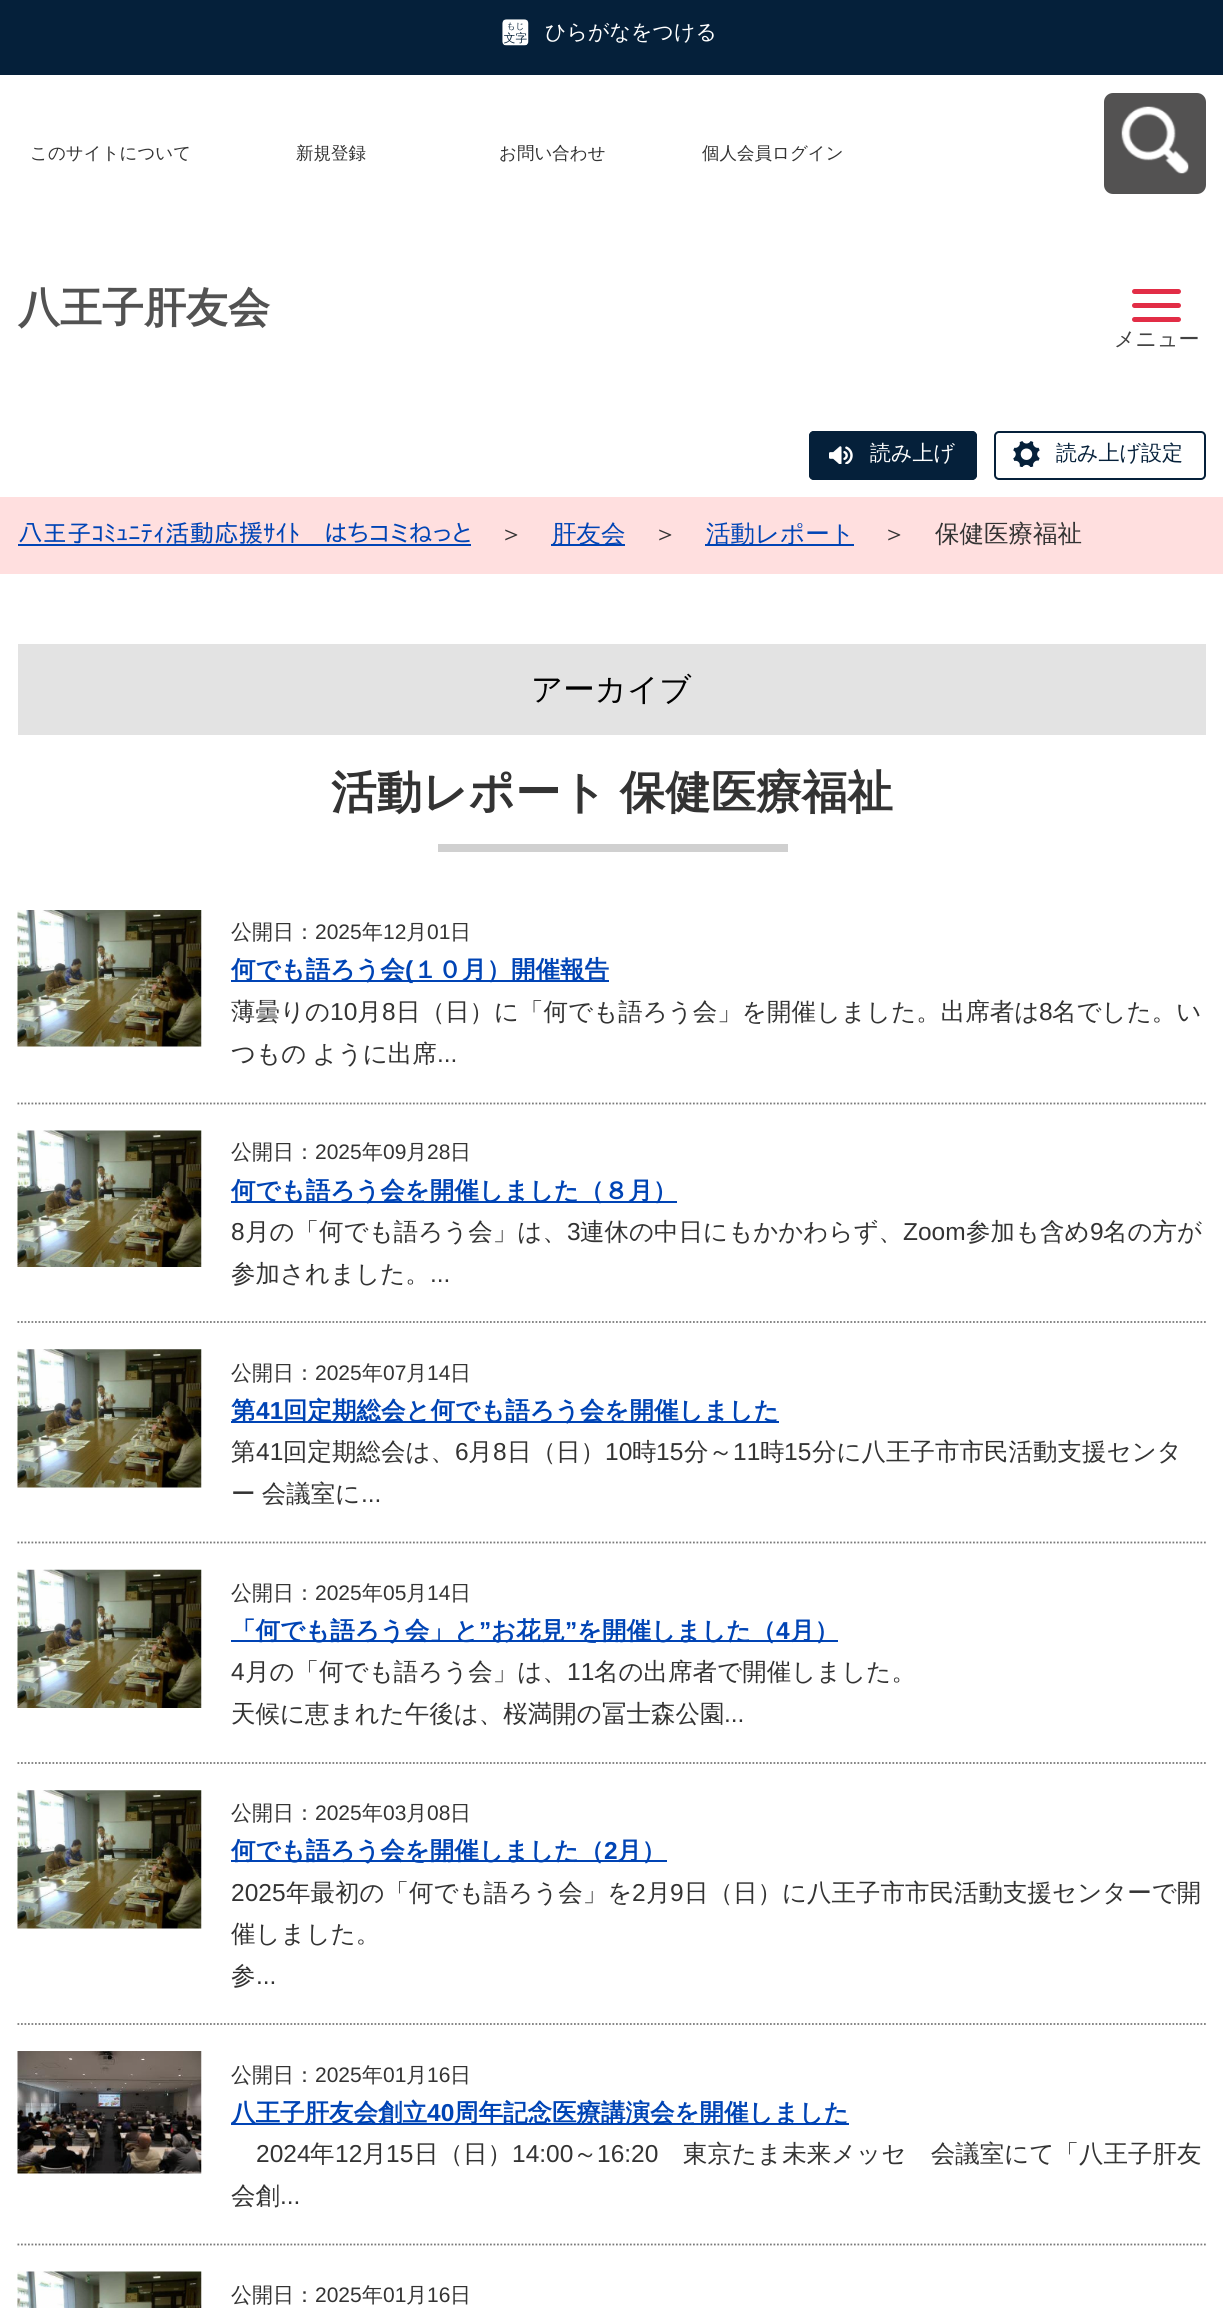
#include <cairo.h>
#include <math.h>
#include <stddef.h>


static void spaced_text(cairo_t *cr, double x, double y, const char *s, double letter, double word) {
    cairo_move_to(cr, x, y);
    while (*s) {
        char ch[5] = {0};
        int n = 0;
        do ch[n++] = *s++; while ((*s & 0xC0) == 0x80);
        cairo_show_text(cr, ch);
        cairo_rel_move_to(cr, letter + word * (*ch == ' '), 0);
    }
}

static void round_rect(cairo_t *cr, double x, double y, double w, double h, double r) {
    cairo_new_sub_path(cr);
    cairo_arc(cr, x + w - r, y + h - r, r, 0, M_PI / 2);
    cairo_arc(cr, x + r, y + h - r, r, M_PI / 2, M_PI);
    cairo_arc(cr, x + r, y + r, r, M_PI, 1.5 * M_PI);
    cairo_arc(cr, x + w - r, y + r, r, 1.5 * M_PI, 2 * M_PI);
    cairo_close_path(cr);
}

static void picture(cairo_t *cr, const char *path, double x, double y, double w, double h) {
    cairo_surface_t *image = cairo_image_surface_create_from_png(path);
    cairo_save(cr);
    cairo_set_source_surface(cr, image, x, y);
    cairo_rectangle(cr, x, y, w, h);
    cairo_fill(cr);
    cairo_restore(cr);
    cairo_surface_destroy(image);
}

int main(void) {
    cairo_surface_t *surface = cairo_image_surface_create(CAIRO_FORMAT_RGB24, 1223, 2308);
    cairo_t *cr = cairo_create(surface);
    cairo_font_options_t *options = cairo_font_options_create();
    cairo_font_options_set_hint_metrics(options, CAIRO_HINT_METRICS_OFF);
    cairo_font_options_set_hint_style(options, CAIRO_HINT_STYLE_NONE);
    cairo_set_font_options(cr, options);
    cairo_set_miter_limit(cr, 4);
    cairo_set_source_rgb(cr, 1, 1, 1);
    cairo_paint(cr);
    cairo_set_source_rgb(cr, 0.02, 0.125, 0.227);
    cairo_rectangle(cr, 0, 0, 1223, 75);
    cairo_fill(cr);
    picture(cr, "img1.png", 502, 19, 27, 27);
    cairo_select_font_face(cr, "WenQuanYi Zen Hei Medium", CAIRO_FONT_SLANT_NORMAL, CAIRO_FONT_WEIGHT_NORMAL);
    cairo_set_font_size(cr, 21);
    cairo_set_source_rgb(cr, 1, 1, 1);
    cairo_move_to(cr, 545, 39);
    cairo_show_text(cr, "ひらがなをつける");
    cairo_set_font_size(cr, 17.5);
    cairo_set_source_rgb(cr, 0.2, 0.2, 0.2);
    cairo_move_to(cr, 30, 159);
    cairo_show_text(cr, "このサイトについて");
    cairo_move_to(cr, 296, 159);
    cairo_show_text(cr, "新規登録");
    cairo_move_to(cr, 499, 159);
    cairo_show_text(cr, "お問い合わせ");
    cairo_move_to(cr, 702, 159);
    cairo_show_text(cr, "個人会員ログイン");
    cairo_set_source_rgb(cr, 0.325, 0.322, 0.322);
    round_rect(cr, 1104, 93, 102, 101, 9);
    cairo_fill(cr);
    picture(cr, "img2.png", 1121, 106, 68, 68);
    cairo_select_font_face(cr, "WenQuanYi Zen Hei", CAIRO_FONT_SLANT_NORMAL, CAIRO_FONT_WEIGHT_BOLD);
    cairo_set_font_size(cr, 42);
    cairo_set_source_rgb(cr, 0.322, 0.322, 0.322);
    cairo_move_to(cr, 18, 322);
    cairo_show_text(cr, "八王子肝友会");
    cairo_set_source_rgb(cr, 0.886, 0.176, 0.275);
    round_rect(cr, 1132, 289, 49, 5, 2.5);
    cairo_fill(cr);
    round_rect(cr, 1132, 303, 49, 5, 2.5);
    cairo_fill(cr);
    round_rect(cr, 1132, 317, 49, 5, 2.5);
    cairo_fill(cr);
    cairo_select_font_face(cr, "WenQuanYi Zen Hei Medium", CAIRO_FONT_SLANT_NORMAL, CAIRO_FONT_WEIGHT_NORMAL);
    cairo_set_font_size(cr, 21);
    cairo_set_source_rgb(cr, 0.259, 0.259, 0.259);
    cairo_move_to(cr, 1114, 346);
    cairo_show_text(cr, "メニュー");
    cairo_set_source_rgb(cr, 0.02, 0.125, 0.227);
    round_rect(cr, 809, 431, 168, 49, 5);
    cairo_fill(cr);
    picture(cr, "img3.png", 829, 446, 24, 18);
    round_rect(cr, 810, 432, 166, 47, 4);
    cairo_stroke(cr);
    cairo_set_source_rgb(cr, 1, 1, 1);
    cairo_move_to(cr, 870, 460);
    cairo_show_text(cr, "読み上げ");
    picture(cr, "img4.png", 1013, 441, 27, 26);
    round_rect(cr, 995, 432, 210, 47, 4);
    cairo_set_source_rgb(cr, 0.02, 0.125, 0.227);
    cairo_stroke(cr);
    cairo_move_to(cr, 1056, 460);
    cairo_show_text(cr, "読み上げ設定");
    cairo_set_source_rgb(cr, 1, 0.875, 0.875);
    cairo_rectangle(cr, 0, 497, 1223, 77);
    cairo_fill(cr);
    cairo_select_font_face(cr, "IPAPGothic", CAIRO_FONT_SLANT_NORMAL, CAIRO_FONT_WEIGHT_NORMAL);
    cairo_set_font_size(cr, 24.5);
    cairo_set_source_rgb(cr, 0, 0.267, 0.71);
    cairo_move_to(cr, 18, 542);
    cairo_show_text(cr, "八王子ｺﾐｭﾆﾃｨ活動応援ｻｲﾄ　はちコミねっと");
    cairo_rectangle(cr, 18, 544, 453, 2);
    cairo_fill(cr);
    cairo_select_font_face(cr, "WenQuanYi Zen Hei Medium", CAIRO_FONT_SLANT_NORMAL, CAIRO_FONT_WEIGHT_NORMAL);
    cairo_set_source_rgb(cr, 0.2, 0.2, 0.2);
    cairo_move_to(cr, 499, 542);
    cairo_show_text(cr, "＞");
    cairo_set_source_rgb(cr, 0, 0.267, 0.71);
    cairo_rectangle(cr, 551, 544, 74, 2);
    cairo_fill(cr);
    cairo_move_to(cr, 552, 542);
    cairo_show_text(cr, "肝友会");
    cairo_set_source_rgb(cr, 0.2, 0.2, 0.2);
    cairo_move_to(cr, 653, 542);
    cairo_show_text(cr, "＞");
    cairo_set_source_rgb(cr, 0, 0.267, 0.71);
    cairo_rectangle(cr, 705, 544, 149, 2);
    cairo_fill(cr);
    cairo_move_to(cr, 706, 542);
    cairo_show_text(cr, "活動レポート");
    cairo_set_source_rgb(cr, 0.2, 0.2, 0.2);
    cairo_move_to(cr, 882, 542);
    cairo_show_text(cr, "＞");
    cairo_move_to(cr, 935, 542);
    cairo_show_text(cr, "保健医療福祉");
    cairo_set_source_rgb(cr, 0.89, 0.89, 0.89);
    cairo_rectangle(cr, 18, 644, 1188, 91);
    cairo_fill(cr);
    cairo_set_font_size(cr, 31.5);
    cairo_set_source_rgb(cr, 0, 0, 0);
    cairo_move_to(cr, 531, 700);
    cairo_show_text(cr, "アーカイブ");
    cairo_select_font_face(cr, "WenQuanYi Zen Hei", CAIRO_FONT_SLANT_NORMAL, CAIRO_FONT_WEIGHT_BOLD);
    cairo_set_font_size(cr, 45.5);
    cairo_set_source_rgb(cr, 0.2, 0.2, 0.2);
    spaced_text(cr, 331, 808, "活動レポート 保健医療福祉", 0, -1);
    cairo_set_source_rgb(cr, 0.816, 0.816, 0.816);
    cairo_rectangle(cr, 438, 844, 350, 8);
    cairo_fill(cr);
    cairo_new_path(cr);
    cairo_move_to(cr, 17.5, 1103.5);
    cairo_line_to(cr, 1206, 1103.5);
    cairo_set_source_rgb(cr, 0.478, 0.478, 0.478);
    cairo_set_line_width(cr, 1.8);
    cairo_set_dash(cr, (double[]){1.75, 1.75}, 2, 0);
    cairo_stroke(cr);
    picture(cr, "img5.png", 17, 910, 185, 137);
    cairo_select_font_face(cr, "WenQuanYi Zen Hei Medium", CAIRO_FONT_SLANT_NORMAL, CAIRO_FONT_WEIGHT_NORMAL);
    cairo_set_font_size(cr, 21);
    cairo_set_source_rgb(cr, 0.2, 0.2, 0.2);
    cairo_move_to(cr, 231, 939);
    cairo_show_text(cr, "公開日：");
    cairo_select_font_face(cr, "Liberation Sans", CAIRO_FONT_SLANT_NORMAL, CAIRO_FONT_WEIGHT_NORMAL);
    cairo_move_to(cr, 315, 939);
    cairo_show_text(cr, "2025");
    cairo_select_font_face(cr, "WenQuanYi Zen Hei Medium", CAIRO_FONT_SLANT_NORMAL, CAIRO_FONT_WEIGHT_NORMAL);
    cairo_move_to(cr, 362, 939);
    cairo_show_text(cr, "年");
    cairo_select_font_face(cr, "Liberation Sans", CAIRO_FONT_SLANT_NORMAL, CAIRO_FONT_WEIGHT_NORMAL);
    cairo_move_to(cr, 383, 939);
    cairo_show_text(cr, "12");
    cairo_select_font_face(cr, "WenQuanYi Zen Hei Medium", CAIRO_FONT_SLANT_NORMAL, CAIRO_FONT_WEIGHT_NORMAL);
    cairo_move_to(cr, 406, 939);
    cairo_show_text(cr, "月");
    cairo_select_font_face(cr, "Liberation Sans", CAIRO_FONT_SLANT_NORMAL, CAIRO_FONT_WEIGHT_NORMAL);
    cairo_move_to(cr, 427, 939);
    cairo_show_text(cr, "01");
    cairo_select_font_face(cr, "WenQuanYi Zen Hei Medium", CAIRO_FONT_SLANT_NORMAL, CAIRO_FONT_WEIGHT_NORMAL);
    cairo_move_to(cr, 450, 939);
    cairo_show_text(cr, "日");
    cairo_set_source_rgb(cr, 0, 0.267, 0.71);
    cairo_rectangle(cr, 231, 980, 378, 2);
    cairo_fill(cr);
    cairo_select_font_face(cr, "WenQuanYi Zen Hei", CAIRO_FONT_SLANT_NORMAL, CAIRO_FONT_WEIGHT_BOLD);
    cairo_set_font_size(cr, 24.5);
    cairo_move_to(cr, 231, 978);
    cairo_show_text(cr, "何でも語ろう会");
    cairo_select_font_face(cr, "Liberation Sans", CAIRO_FONT_SLANT_NORMAL, CAIRO_FONT_WEIGHT_BOLD);
    cairo_move_to(cr, 405, 978);
    cairo_show_text(cr, "(");
    cairo_select_font_face(cr, "WenQuanYi Zen Hei", CAIRO_FONT_SLANT_NORMAL, CAIRO_FONT_WEIGHT_BOLD);
    cairo_move_to(cr, 413, 978);
    cairo_show_text(cr, "１０月）開催報告");
    cairo_select_font_face(cr, "WenQuanYi Zen Hei Medium", CAIRO_FONT_SLANT_NORMAL, CAIRO_FONT_WEIGHT_NORMAL);
    cairo_set_source_rgb(cr, 0.2, 0.2, 0.2);
    cairo_move_to(cr, 231, 1020);
    cairo_show_text(cr, "薄曇りの");
    cairo_select_font_face(cr, "Liberation Sans", CAIRO_FONT_SLANT_NORMAL, CAIRO_FONT_WEIGHT_NORMAL);
    cairo_move_to(cr, 330, 1020);
    cairo_show_text(cr, "10");
    cairo_select_font_face(cr, "WenQuanYi Zen Hei Medium", CAIRO_FONT_SLANT_NORMAL, CAIRO_FONT_WEIGHT_NORMAL);
    cairo_move_to(cr, 357, 1020);
    cairo_show_text(cr, "月");
    cairo_select_font_face(cr, "Liberation Sans", CAIRO_FONT_SLANT_NORMAL, CAIRO_FONT_WEIGHT_NORMAL);
    cairo_move_to(cr, 382, 1020);
    cairo_show_text(cr, "8");
    cairo_select_font_face(cr, "WenQuanYi Zen Hei Medium", CAIRO_FONT_SLANT_NORMAL, CAIRO_FONT_WEIGHT_NORMAL);
    cairo_move_to(cr, 396, 1020);
    cairo_show_text(cr, "日（日）に「何でも語ろう会」を開催しました。出席者は");
    cairo_select_font_face(cr, "Liberation Sans", CAIRO_FONT_SLANT_NORMAL, CAIRO_FONT_WEIGHT_NORMAL);
    cairo_move_to(cr, 1039, 1020);
    cairo_show_text(cr, "8");
    cairo_select_font_face(cr, "WenQuanYi Zen Hei Medium", CAIRO_FONT_SLANT_NORMAL, CAIRO_FONT_WEIGHT_NORMAL);
    cairo_move_to(cr, 1052, 1020);
    cairo_show_text(cr, "名でした。い");
    spaced_text(cr, 231, 1062, "つもの ように出席", 0, -1);
    cairo_select_font_face(cr, "Liberation Sans", CAIRO_FONT_SLANT_NORMAL, CAIRO_FONT_WEIGHT_NORMAL);
    cairo_move_to(cr, 437, 1062);
    cairo_show_text(cr, "...");
    cairo_new_path(cr);
    cairo_move_to(cr, 17.5, 1322);
    cairo_line_to(cr, 1206, 1322);
    cairo_set_source_rgb(cr, 0.478, 0.478, 0.478);
    cairo_stroke(cr);
    picture(cr, "img6.png", 17, 1130, 185, 137);
    cairo_select_font_face(cr, "WenQuanYi Zen Hei Medium", CAIRO_FONT_SLANT_NORMAL, CAIRO_FONT_WEIGHT_NORMAL);
    cairo_set_font_size(cr, 21);
    cairo_set_source_rgb(cr, 0.2, 0.2, 0.2);
    cairo_move_to(cr, 231, 1159);
    cairo_show_text(cr, "公開日：");
    cairo_select_font_face(cr, "Liberation Sans", CAIRO_FONT_SLANT_NORMAL, CAIRO_FONT_WEIGHT_NORMAL);
    cairo_move_to(cr, 315, 1159);
    cairo_show_text(cr, "2025");
    cairo_select_font_face(cr, "WenQuanYi Zen Hei Medium", CAIRO_FONT_SLANT_NORMAL, CAIRO_FONT_WEIGHT_NORMAL);
    cairo_move_to(cr, 362, 1159);
    cairo_show_text(cr, "年");
    cairo_select_font_face(cr, "Liberation Sans", CAIRO_FONT_SLANT_NORMAL, CAIRO_FONT_WEIGHT_NORMAL);
    cairo_move_to(cr, 383, 1159);
    cairo_show_text(cr, "09");
    cairo_select_font_face(cr, "WenQuanYi Zen Hei Medium", CAIRO_FONT_SLANT_NORMAL, CAIRO_FONT_WEIGHT_NORMAL);
    cairo_move_to(cr, 406, 1159);
    cairo_show_text(cr, "月");
    cairo_select_font_face(cr, "Liberation Sans", CAIRO_FONT_SLANT_NORMAL, CAIRO_FONT_WEIGHT_NORMAL);
    cairo_move_to(cr, 427, 1159);
    cairo_show_text(cr, "28");
    cairo_select_font_face(cr, "WenQuanYi Zen Hei Medium", CAIRO_FONT_SLANT_NORMAL, CAIRO_FONT_WEIGHT_NORMAL);
    cairo_move_to(cr, 450, 1159);
    cairo_show_text(cr, "日");
    cairo_set_source_rgb(cr, 0, 0.267, 0.71);
    cairo_rectangle(cr, 231, 1201, 446, 2);
    cairo_fill(cr);
    cairo_select_font_face(cr, "WenQuanYi Zen Hei", CAIRO_FONT_SLANT_NORMAL, CAIRO_FONT_WEIGHT_BOLD);
    cairo_set_font_size(cr, 24.5);
    cairo_move_to(cr, 231, 1199);
    cairo_show_text(cr, "何でも語ろう会を開催しました（８月）");
    cairo_select_font_face(cr, "Liberation Sans", CAIRO_FONT_SLANT_NORMAL, CAIRO_FONT_WEIGHT_NORMAL);
    cairo_set_source_rgb(cr, 0.2, 0.2, 0.2);
    cairo_move_to(cr, 231, 1240);
    cairo_show_text(cr, "8");
    cairo_select_font_face(cr, "WenQuanYi Zen Hei Medium", CAIRO_FONT_SLANT_NORMAL, CAIRO_FONT_WEIGHT_NORMAL);
    cairo_move_to(cr, 245, 1240);
    cairo_show_text(cr, "月の「何でも語ろう会」は、");
    cairo_select_font_face(cr, "Liberation Sans", CAIRO_FONT_SLANT_NORMAL, CAIRO_FONT_WEIGHT_NORMAL);
    cairo_move_to(cr, 567, 1240);
    cairo_show_text(cr, "3");
    cairo_select_font_face(cr, "WenQuanYi Zen Hei Medium", CAIRO_FONT_SLANT_NORMAL, CAIRO_FONT_WEIGHT_NORMAL);
    cairo_move_to(cr, 580, 1240);
    cairo_show_text(cr, "連休の中日にもかかわらず、");
    cairo_select_font_face(cr, "Liberation Sans", CAIRO_FONT_SLANT_NORMAL, CAIRO_FONT_WEIGHT_NORMAL);
    cairo_move_to(cr, 903, 1240);
    cairo_show_text(cr, "Zoom");
    cairo_select_font_face(cr, "WenQuanYi Zen Hei Medium", CAIRO_FONT_SLANT_NORMAL, CAIRO_FONT_WEIGHT_NORMAL);
    cairo_move_to(cr, 966, 1240);
    cairo_show_text(cr, "参加も含め");
    cairo_select_font_face(cr, "Liberation Sans", CAIRO_FONT_SLANT_NORMAL, CAIRO_FONT_WEIGHT_NORMAL);
    cairo_move_to(cr, 1090, 1240);
    cairo_show_text(cr, "9");
    cairo_select_font_face(cr, "WenQuanYi Zen Hei Medium", CAIRO_FONT_SLANT_NORMAL, CAIRO_FONT_WEIGHT_NORMAL);
    cairo_move_to(cr, 1103, 1240);
    cairo_show_text(cr, "名の方が");
    cairo_move_to(cr, 231, 1282);
    cairo_show_text(cr, "参加されました。");
    cairo_select_font_face(cr, "Liberation Sans", CAIRO_FONT_SLANT_NORMAL, CAIRO_FONT_WEIGHT_NORMAL);
    cairo_move_to(cr, 430, 1282);
    cairo_show_text(cr, "...");
    cairo_new_path(cr);
    cairo_move_to(cr, 17.5, 1542.5);
    cairo_line_to(cr, 1206, 1542.5);
    cairo_set_source_rgb(cr, 0.478, 0.478, 0.478);
    cairo_stroke(cr);
    picture(cr, "img7.png", 17, 1349, 185, 139);
    cairo_select_font_face(cr, "WenQuanYi Zen Hei Medium", CAIRO_FONT_SLANT_NORMAL, CAIRO_FONT_WEIGHT_NORMAL);
    cairo_set_font_size(cr, 21);
    cairo_set_source_rgb(cr, 0.2, 0.2, 0.2);
    cairo_move_to(cr, 231, 1380);
    cairo_show_text(cr, "公開日：");
    cairo_select_font_face(cr, "Liberation Sans", CAIRO_FONT_SLANT_NORMAL, CAIRO_FONT_WEIGHT_NORMAL);
    cairo_move_to(cr, 315, 1380);
    cairo_show_text(cr, "2025");
    cairo_select_font_face(cr, "WenQuanYi Zen Hei Medium", CAIRO_FONT_SLANT_NORMAL, CAIRO_FONT_WEIGHT_NORMAL);
    cairo_move_to(cr, 362, 1380);
    cairo_show_text(cr, "年");
    cairo_select_font_face(cr, "Liberation Sans", CAIRO_FONT_SLANT_NORMAL, CAIRO_FONT_WEIGHT_NORMAL);
    cairo_move_to(cr, 383, 1380);
    cairo_show_text(cr, "07");
    cairo_select_font_face(cr, "WenQuanYi Zen Hei Medium", CAIRO_FONT_SLANT_NORMAL, CAIRO_FONT_WEIGHT_NORMAL);
    cairo_move_to(cr, 406, 1380);
    cairo_show_text(cr, "月");
    cairo_select_font_face(cr, "Liberation Sans", CAIRO_FONT_SLANT_NORMAL, CAIRO_FONT_WEIGHT_NORMAL);
    cairo_move_to(cr, 427, 1380);
    cairo_show_text(cr, "14");
    cairo_select_font_face(cr, "WenQuanYi Zen Hei Medium", CAIRO_FONT_SLANT_NORMAL, CAIRO_FONT_WEIGHT_NORMAL);
    cairo_move_to(cr, 450, 1380);
    cairo_show_text(cr, "日");
    cairo_set_source_rgb(cr, 0, 0.267, 0.71);
    cairo_rectangle(cr, 231, 1421, 548, 2);
    cairo_fill(cr);
    cairo_select_font_face(cr, "WenQuanYi Zen Hei", CAIRO_FONT_SLANT_NORMAL, CAIRO_FONT_WEIGHT_BOLD);
    cairo_set_font_size(cr, 24.5);
    cairo_move_to(cr, 231, 1419);
    cairo_show_text(cr, "第");
    cairo_select_font_face(cr, "Liberation Sans", CAIRO_FONT_SLANT_NORMAL, CAIRO_FONT_WEIGHT_BOLD);
    cairo_move_to(cr, 256, 1419);
    cairo_show_text(cr, "41");
    cairo_select_font_face(cr, "WenQuanYi Zen Hei", CAIRO_FONT_SLANT_NORMAL, CAIRO_FONT_WEIGHT_BOLD);
    cairo_move_to(cr, 283, 1419);
    cairo_show_text(cr, "回定期総会と何でも語ろう会を開催しました");
    cairo_select_font_face(cr, "WenQuanYi Zen Hei Medium", CAIRO_FONT_SLANT_NORMAL, CAIRO_FONT_WEIGHT_NORMAL);
    cairo_set_source_rgb(cr, 0.2, 0.2, 0.2);
    cairo_move_to(cr, 231, 1460);
    cairo_show_text(cr, "第");
    cairo_select_font_face(cr, "Liberation Sans", CAIRO_FONT_SLANT_NORMAL, CAIRO_FONT_WEIGHT_NORMAL);
    cairo_move_to(cr, 256, 1460);
    cairo_show_text(cr, "41");
    cairo_select_font_face(cr, "WenQuanYi Zen Hei Medium", CAIRO_FONT_SLANT_NORMAL, CAIRO_FONT_WEIGHT_NORMAL);
    cairo_move_to(cr, 283, 1460);
    cairo_show_text(cr, "回定期総会は、");
    cairo_select_font_face(cr, "Liberation Sans", CAIRO_FONT_SLANT_NORMAL, CAIRO_FONT_WEIGHT_NORMAL);
    cairo_move_to(cr, 455, 1460);
    cairo_show_text(cr, "6");
    cairo_select_font_face(cr, "WenQuanYi Zen Hei Medium", CAIRO_FONT_SLANT_NORMAL, CAIRO_FONT_WEIGHT_NORMAL);
    cairo_move_to(cr, 468, 1460);
    cairo_show_text(cr, "月");
    cairo_select_font_face(cr, "Liberation Sans", CAIRO_FONT_SLANT_NORMAL, CAIRO_FONT_WEIGHT_NORMAL);
    cairo_move_to(cr, 493, 1460);
    cairo_show_text(cr, "8");
    cairo_select_font_face(cr, "WenQuanYi Zen Hei Medium", CAIRO_FONT_SLANT_NORMAL, CAIRO_FONT_WEIGHT_NORMAL);
    cairo_move_to(cr, 507, 1460);
    cairo_show_text(cr, "日（日）");
    cairo_select_font_face(cr, "Liberation Sans", CAIRO_FONT_SLANT_NORMAL, CAIRO_FONT_WEIGHT_NORMAL);
    cairo_move_to(cr, 605, 1460);
    cairo_show_text(cr, "10");
    cairo_select_font_face(cr, "WenQuanYi Zen Hei Medium", CAIRO_FONT_SLANT_NORMAL, CAIRO_FONT_WEIGHT_NORMAL);
    cairo_move_to(cr, 632, 1460);
    cairo_show_text(cr, "時");
    cairo_select_font_face(cr, "Liberation Sans", CAIRO_FONT_SLANT_NORMAL, CAIRO_FONT_WEIGHT_NORMAL);
    cairo_move_to(cr, 656, 1460);
    cairo_show_text(cr, "15");
    cairo_select_font_face(cr, "WenQuanYi Zen Hei Medium", CAIRO_FONT_SLANT_NORMAL, CAIRO_FONT_WEIGHT_NORMAL);
    cairo_move_to(cr, 684, 1460);
    cairo_show_text(cr, "分～");
    cairo_select_font_face(cr, "Liberation Sans", CAIRO_FONT_SLANT_NORMAL, CAIRO_FONT_WEIGHT_NORMAL);
    cairo_move_to(cr, 733, 1460);
    cairo_show_text(cr, "11");
    cairo_select_font_face(cr, "WenQuanYi Zen Hei Medium", CAIRO_FONT_SLANT_NORMAL, CAIRO_FONT_WEIGHT_NORMAL);
    cairo_move_to(cr, 760, 1460);
    cairo_show_text(cr, "時");
    cairo_select_font_face(cr, "Liberation Sans", CAIRO_FONT_SLANT_NORMAL, CAIRO_FONT_WEIGHT_NORMAL);
    cairo_move_to(cr, 784, 1460);
    cairo_show_text(cr, "15");
    cairo_select_font_face(cr, "WenQuanYi Zen Hei Medium", CAIRO_FONT_SLANT_NORMAL, CAIRO_FONT_WEIGHT_NORMAL);
    cairo_move_to(cr, 812, 1460);
    cairo_show_text(cr, "分に八王子市市民活動支援センタ");
    spaced_text(cr, 231, 1502, "ー 会議室に", 0, -1);
    cairo_select_font_face(cr, "Liberation Sans", CAIRO_FONT_SLANT_NORMAL, CAIRO_FONT_WEIGHT_NORMAL);
    cairo_move_to(cr, 361, 1502);
    cairo_show_text(cr, "...");
    cairo_new_path(cr);
    cairo_move_to(cr, 17.5, 1763);
    cairo_line_to(cr, 1206, 1763);
    cairo_set_source_rgb(cr, 0.478, 0.478, 0.478);
    cairo_stroke(cr);
    picture(cr, "img8.png", 17, 1569, 185, 139);
    cairo_select_font_face(cr, "WenQuanYi Zen Hei Medium", CAIRO_FONT_SLANT_NORMAL, CAIRO_FONT_WEIGHT_NORMAL);
    cairo_set_font_size(cr, 21);
    cairo_set_source_rgb(cr, 0.2, 0.2, 0.2);
    cairo_move_to(cr, 231, 1600);
    cairo_show_text(cr, "公開日：");
    cairo_select_font_face(cr, "Liberation Sans", CAIRO_FONT_SLANT_NORMAL, CAIRO_FONT_WEIGHT_NORMAL);
    cairo_move_to(cr, 315, 1600);
    cairo_show_text(cr, "2025");
    cairo_select_font_face(cr, "WenQuanYi Zen Hei Medium", CAIRO_FONT_SLANT_NORMAL, CAIRO_FONT_WEIGHT_NORMAL);
    cairo_move_to(cr, 362, 1600);
    cairo_show_text(cr, "年");
    cairo_select_font_face(cr, "Liberation Sans", CAIRO_FONT_SLANT_NORMAL, CAIRO_FONT_WEIGHT_NORMAL);
    cairo_move_to(cr, 383, 1600);
    cairo_show_text(cr, "05");
    cairo_select_font_face(cr, "WenQuanYi Zen Hei Medium", CAIRO_FONT_SLANT_NORMAL, CAIRO_FONT_WEIGHT_NORMAL);
    cairo_move_to(cr, 406, 1600);
    cairo_show_text(cr, "月");
    cairo_select_font_face(cr, "Liberation Sans", CAIRO_FONT_SLANT_NORMAL, CAIRO_FONT_WEIGHT_NORMAL);
    cairo_move_to(cr, 427, 1600);
    cairo_show_text(cr, "14");
    cairo_select_font_face(cr, "WenQuanYi Zen Hei Medium", CAIRO_FONT_SLANT_NORMAL, CAIRO_FONT_WEIGHT_NORMAL);
    cairo_move_to(cr, 450, 1600);
    cairo_show_text(cr, "日");
    cairo_set_source_rgb(cr, 0, 0.267, 0.71);
    cairo_rectangle(cr, 231, 1640, 607, 2);
    cairo_fill(cr);
    cairo_select_font_face(cr, "WenQuanYi Zen Hei", CAIRO_FONT_SLANT_NORMAL, CAIRO_FONT_WEIGHT_BOLD);
    cairo_set_font_size(cr, 24.5);
    cairo_move_to(cr, 231, 1639);
    cairo_show_text(cr, "「何でも語ろう会」と");
    cairo_select_font_face(cr, "Liberation Sans", CAIRO_FONT_SLANT_NORMAL, CAIRO_FONT_WEIGHT_BOLD);
    cairo_move_to(cr, 479, 1639);
    cairo_show_text(cr, "”");
    cairo_select_font_face(cr, "WenQuanYi Zen Hei", CAIRO_FONT_SLANT_NORMAL, CAIRO_FONT_WEIGHT_BOLD);
    cairo_move_to(cr, 491, 1639);
    cairo_show_text(cr, "お花見");
    cairo_select_font_face(cr, "Liberation Sans", CAIRO_FONT_SLANT_NORMAL, CAIRO_FONT_WEIGHT_BOLD);
    cairo_move_to(cr, 565, 1639);
    cairo_show_text(cr, "”");
    cairo_select_font_face(cr, "WenQuanYi Zen Hei", CAIRO_FONT_SLANT_NORMAL, CAIRO_FONT_WEIGHT_BOLD);
    cairo_move_to(cr, 577, 1639);
    cairo_show_text(cr, "を開催しました（");
    cairo_select_font_face(cr, "Liberation Sans", CAIRO_FONT_SLANT_NORMAL, CAIRO_FONT_WEIGHT_BOLD);
    cairo_move_to(cr, 776, 1639);
    cairo_show_text(cr, "4");
    cairo_select_font_face(cr, "WenQuanYi Zen Hei", CAIRO_FONT_SLANT_NORMAL, CAIRO_FONT_WEIGHT_BOLD);
    cairo_move_to(cr, 790, 1639);
    cairo_show_text(cr, "月）");
    cairo_select_font_face(cr, "Liberation Sans", CAIRO_FONT_SLANT_NORMAL, CAIRO_FONT_WEIGHT_NORMAL);
    cairo_set_source_rgb(cr, 0.2, 0.2, 0.2);
    cairo_move_to(cr, 231, 1680);
    cairo_show_text(cr, "4");
    cairo_select_font_face(cr, "WenQuanYi Zen Hei Medium", CAIRO_FONT_SLANT_NORMAL, CAIRO_FONT_WEIGHT_NORMAL);
    cairo_move_to(cr, 245, 1680);
    cairo_show_text(cr, "月の「何でも語ろう会」は、");
    cairo_select_font_face(cr, "Liberation Sans", CAIRO_FONT_SLANT_NORMAL, CAIRO_FONT_WEIGHT_NORMAL);
    cairo_move_to(cr, 567, 1680);
    cairo_show_text(cr, "11");
    cairo_select_font_face(cr, "WenQuanYi Zen Hei Medium", CAIRO_FONT_SLANT_NORMAL, CAIRO_FONT_WEIGHT_NORMAL);
    cairo_move_to(cr, 594, 1680);
    cairo_show_text(cr, "名の出席者で開催しました。");
    cairo_move_to(cr, 231, 1722);
    cairo_show_text(cr, "天候に恵まれた午後は、桜満開の冨士森公園");
    cairo_select_font_face(cr, "Liberation Sans", CAIRO_FONT_SLANT_NORMAL, CAIRO_FONT_WEIGHT_NORMAL);
    cairo_move_to(cr, 724, 1722);
    cairo_show_text(cr, "...");
    cairo_new_path(cr);
    cairo_move_to(cr, 17.5, 2024);
    cairo_line_to(cr, 1206, 2024);
    cairo_set_source_rgb(cr, 0.478, 0.478, 0.478);
    cairo_stroke(cr);
    picture(cr, "img7.png", 17, 1790, 185, 139);
    cairo_select_font_face(cr, "WenQuanYi Zen Hei Medium", CAIRO_FONT_SLANT_NORMAL, CAIRO_FONT_WEIGHT_NORMAL);
    cairo_set_font_size(cr, 21);
    cairo_set_source_rgb(cr, 0.2, 0.2, 0.2);
    cairo_move_to(cr, 231, 1820);
    cairo_show_text(cr, "公開日：");
    cairo_select_font_face(cr, "Liberation Sans", CAIRO_FONT_SLANT_NORMAL, CAIRO_FONT_WEIGHT_NORMAL);
    cairo_move_to(cr, 315, 1820);
    cairo_show_text(cr, "2025");
    cairo_select_font_face(cr, "WenQuanYi Zen Hei Medium", CAIRO_FONT_SLANT_NORMAL, CAIRO_FONT_WEIGHT_NORMAL);
    cairo_move_to(cr, 362, 1820);
    cairo_show_text(cr, "年");
    cairo_select_font_face(cr, "Liberation Sans", CAIRO_FONT_SLANT_NORMAL, CAIRO_FONT_WEIGHT_NORMAL);
    cairo_move_to(cr, 383, 1820);
    cairo_show_text(cr, "03");
    cairo_select_font_face(cr, "WenQuanYi Zen Hei Medium", CAIRO_FONT_SLANT_NORMAL, CAIRO_FONT_WEIGHT_NORMAL);
    cairo_move_to(cr, 406, 1820);
    cairo_show_text(cr, "月");
    cairo_select_font_face(cr, "Liberation Sans", CAIRO_FONT_SLANT_NORMAL, CAIRO_FONT_WEIGHT_NORMAL);
    cairo_move_to(cr, 427, 1820);
    cairo_show_text(cr, "08");
    cairo_select_font_face(cr, "WenQuanYi Zen Hei Medium", CAIRO_FONT_SLANT_NORMAL, CAIRO_FONT_WEIGHT_NORMAL);
    cairo_move_to(cr, 450, 1820);
    cairo_show_text(cr, "日");
    cairo_set_source_rgb(cr, 0, 0.267, 0.71);
    cairo_rectangle(cr, 231, 1860, 436, 2);
    cairo_fill(cr);
    cairo_select_font_face(cr, "WenQuanYi Zen Hei", CAIRO_FONT_SLANT_NORMAL, CAIRO_FONT_WEIGHT_BOLD);
    cairo_set_font_size(cr, 24.5);
    cairo_move_to(cr, 231, 1859);
    cairo_show_text(cr, "何でも語ろう会を開催しました（");
    cairo_select_font_face(cr, "Liberation Sans", CAIRO_FONT_SLANT_NORMAL, CAIRO_FONT_WEIGHT_BOLD);
    cairo_move_to(cr, 604, 1859);
    cairo_show_text(cr, "2");
    cairo_select_font_face(cr, "WenQuanYi Zen Hei", CAIRO_FONT_SLANT_NORMAL, CAIRO_FONT_WEIGHT_BOLD);
    cairo_move_to(cr, 617, 1859);
    cairo_show_text(cr, "月）");
    cairo_select_font_face(cr, "Liberation Sans", CAIRO_FONT_SLANT_NORMAL, CAIRO_FONT_WEIGHT_NORMAL);
    cairo_set_source_rgb(cr, 0.2, 0.2, 0.2);
    cairo_move_to(cr, 231, 1901);
    cairo_show_text(cr, "2025");
    cairo_select_font_face(cr, "WenQuanYi Zen Hei Medium", CAIRO_FONT_SLANT_NORMAL, CAIRO_FONT_WEIGHT_NORMAL);
    cairo_move_to(cr, 286, 1901);
    cairo_show_text(cr, "年最初の「何でも語ろう会」を");
    cairo_select_font_face(cr, "Liberation Sans", CAIRO_FONT_SLANT_NORMAL, CAIRO_FONT_WEIGHT_NORMAL);
    cairo_move_to(cr, 632, 1901);
    cairo_show_text(cr, "2");
    cairo_select_font_face(cr, "WenQuanYi Zen Hei Medium", CAIRO_FONT_SLANT_NORMAL, CAIRO_FONT_WEIGHT_NORMAL);
    cairo_move_to(cr, 646, 1901);
    cairo_show_text(cr, "月");
    cairo_select_font_face(cr, "Liberation Sans", CAIRO_FONT_SLANT_NORMAL, CAIRO_FONT_WEIGHT_NORMAL);
    cairo_move_to(cr, 670, 1901);
    cairo_show_text(cr, "9");
    cairo_select_font_face(cr, "WenQuanYi Zen Hei Medium", CAIRO_FONT_SLANT_NORMAL, CAIRO_FONT_WEIGHT_NORMAL);
    cairo_move_to(cr, 684, 1901);
    cairo_show_text(cr, "日（日）に八王子市市民活動支援センターで開");
    cairo_move_to(cr, 231, 1942);
    cairo_show_text(cr, "催しました。");
    cairo_move_to(cr, 231, 1984);
    cairo_show_text(cr, "参");
    cairo_select_font_face(cr, "Liberation Sans", CAIRO_FONT_SLANT_NORMAL, CAIRO_FONT_WEIGHT_NORMAL);
    cairo_move_to(cr, 256, 1984);
    cairo_show_text(cr, "...");
    cairo_new_path(cr);
    cairo_move_to(cr, 17.5, 2244.5);
    cairo_line_to(cr, 1206, 2244.5);
    cairo_set_source_rgb(cr, 0.478, 0.478, 0.478);
    cairo_stroke(cr);
    picture(cr, "img9.png", 17, 2051, 185, 123);
    cairo_select_font_face(cr, "WenQuanYi Zen Hei Medium", CAIRO_FONT_SLANT_NORMAL, CAIRO_FONT_WEIGHT_NORMAL);
    cairo_set_font_size(cr, 21);
    cairo_set_source_rgb(cr, 0.2, 0.2, 0.2);
    cairo_move_to(cr, 231, 2082);
    cairo_show_text(cr, "公開日：");
    cairo_select_font_face(cr, "Liberation Sans", CAIRO_FONT_SLANT_NORMAL, CAIRO_FONT_WEIGHT_NORMAL);
    cairo_move_to(cr, 315, 2082);
    cairo_show_text(cr, "2025");
    cairo_select_font_face(cr, "WenQuanYi Zen Hei Medium", CAIRO_FONT_SLANT_NORMAL, CAIRO_FONT_WEIGHT_NORMAL);
    cairo_move_to(cr, 362, 2082);
    cairo_show_text(cr, "年");
    cairo_select_font_face(cr, "Liberation Sans", CAIRO_FONT_SLANT_NORMAL, CAIRO_FONT_WEIGHT_NORMAL);
    cairo_move_to(cr, 383, 2082);
    cairo_show_text(cr, "01");
    cairo_select_font_face(cr, "WenQuanYi Zen Hei Medium", CAIRO_FONT_SLANT_NORMAL, CAIRO_FONT_WEIGHT_NORMAL);
    cairo_move_to(cr, 406, 2082);
    cairo_show_text(cr, "月");
    cairo_select_font_face(cr, "Liberation Sans", CAIRO_FONT_SLANT_NORMAL, CAIRO_FONT_WEIGHT_NORMAL);
    cairo_move_to(cr, 427, 2082);
    cairo_show_text(cr, "16");
    cairo_select_font_face(cr, "WenQuanYi Zen Hei Medium", CAIRO_FONT_SLANT_NORMAL, CAIRO_FONT_WEIGHT_NORMAL);
    cairo_move_to(cr, 450, 2082);
    cairo_show_text(cr, "日");
    cairo_set_source_rgb(cr, 0, 0.267, 0.71);
    cairo_rectangle(cr, 231, 2123, 618, 2);
    cairo_fill(cr);
    cairo_select_font_face(cr, "WenQuanYi Zen Hei", CAIRO_FONT_SLANT_NORMAL, CAIRO_FONT_WEIGHT_BOLD);
    cairo_set_font_size(cr, 24.5);
    cairo_move_to(cr, 231, 2121);
    cairo_show_text(cr, "八王子肝友会創立");
    cairo_select_font_face(cr, "Liberation Sans", CAIRO_FONT_SLANT_NORMAL, CAIRO_FONT_WEIGHT_BOLD);
    cairo_move_to(cr, 427, 2121);
    cairo_show_text(cr, "40");
    cairo_select_font_face(cr, "WenQuanYi Zen Hei", CAIRO_FONT_SLANT_NORMAL, CAIRO_FONT_WEIGHT_BOLD);
    cairo_move_to(cr, 454, 2121);
    cairo_show_text(cr, "周年記念医療講演会を開催しました");
    cairo_select_font_face(cr, "Liberation Sans", CAIRO_FONT_SLANT_NORMAL, CAIRO_FONT_WEIGHT_NORMAL);
    cairo_set_source_rgb(cr, 0.2, 0.2, 0.2);
    cairo_move_to(cr, 256, 2162);
    cairo_show_text(cr, "2024");
    cairo_select_font_face(cr, "WenQuanYi Zen Hei Medium", CAIRO_FONT_SLANT_NORMAL, CAIRO_FONT_WEIGHT_NORMAL);
    cairo_move_to(cr, 310, 2162);
    cairo_show_text(cr, "年");
    cairo_select_font_face(cr, "Liberation Sans", CAIRO_FONT_SLANT_NORMAL, CAIRO_FONT_WEIGHT_NORMAL);
    cairo_move_to(cr, 335, 2162);
    cairo_show_text(cr, "12");
    cairo_select_font_face(cr, "WenQuanYi Zen Hei Medium", CAIRO_FONT_SLANT_NORMAL, CAIRO_FONT_WEIGHT_NORMAL);
    cairo_move_to(cr, 362, 2162);
    cairo_show_text(cr, "月");
    cairo_select_font_face(cr, "Liberation Sans", CAIRO_FONT_SLANT_NORMAL, CAIRO_FONT_WEIGHT_NORMAL);
    cairo_move_to(cr, 386, 2162);
    cairo_show_text(cr, "15");
    cairo_select_font_face(cr, "WenQuanYi Zen Hei Medium", CAIRO_FONT_SLANT_NORMAL, CAIRO_FONT_WEIGHT_NORMAL);
    cairo_move_to(cr, 414, 2162);
    cairo_show_text(cr, "日（日）");
    cairo_select_font_face(cr, "Liberation Sans", CAIRO_FONT_SLANT_NORMAL, CAIRO_FONT_WEIGHT_NORMAL);
    cairo_move_to(cr, 512, 2162);
    cairo_show_text(cr, "14:00");
    cairo_select_font_face(cr, "WenQuanYi Zen Hei Medium", CAIRO_FONT_SLANT_NORMAL, CAIRO_FONT_WEIGHT_NORMAL);
    cairo_move_to(cr, 573, 2162);
    cairo_show_text(cr, "～");
    cairo_select_font_face(cr, "Liberation Sans", CAIRO_FONT_SLANT_NORMAL, CAIRO_FONT_WEIGHT_NORMAL);
    cairo_move_to(cr, 597, 2162);
    cairo_show_text(cr, "16:20");
    cairo_select_font_face(cr, "WenQuanYi Zen Hei Medium", CAIRO_FONT_SLANT_NORMAL, CAIRO_FONT_WEIGHT_NORMAL);
    cairo_move_to(cr, 683, 2162);
    cairo_show_text(cr, "東京たま未来メッセ　会議室にて「八王子肝友");
    cairo_move_to(cr, 231, 2204);
    cairo_show_text(cr, "会創");
    cairo_select_font_face(cr, "Liberation Sans", CAIRO_FONT_SLANT_NORMAL, CAIRO_FONT_WEIGHT_NORMAL);
    cairo_move_to(cr, 280, 2204);
    cairo_show_text(cr, "...");
    picture(cr, "img10.png", 17, 2271, 185, 37);
    cairo_select_font_face(cr, "WenQuanYi Zen Hei Medium", CAIRO_FONT_SLANT_NORMAL, CAIRO_FONT_WEIGHT_NORMAL);
    cairo_set_font_size(cr, 21);
    cairo_move_to(cr, 231, 2302);
    cairo_show_text(cr, "公開日：");
    cairo_select_font_face(cr, "Liberation Sans", CAIRO_FONT_SLANT_NORMAL, CAIRO_FONT_WEIGHT_NORMAL);
    cairo_move_to(cr, 315, 2302);
    cairo_show_text(cr, "2025");
    cairo_select_font_face(cr, "WenQuanYi Zen Hei Medium", CAIRO_FONT_SLANT_NORMAL, CAIRO_FONT_WEIGHT_NORMAL);
    cairo_move_to(cr, 362, 2302);
    cairo_show_text(cr, "年");
    cairo_select_font_face(cr, "Liberation Sans", CAIRO_FONT_SLANT_NORMAL, CAIRO_FONT_WEIGHT_NORMAL);
    cairo_move_to(cr, 383, 2302);
    cairo_show_text(cr, "01");
    cairo_select_font_face(cr, "WenQuanYi Zen Hei Medium", CAIRO_FONT_SLANT_NORMAL, CAIRO_FONT_WEIGHT_NORMAL);
    cairo_move_to(cr, 406, 2302);
    cairo_show_text(cr, "月");
    cairo_select_font_face(cr, "Liberation Sans", CAIRO_FONT_SLANT_NORMAL, CAIRO_FONT_WEIGHT_NORMAL);
    cairo_move_to(cr, 427, 2302);
    cairo_show_text(cr, "16");
    cairo_select_font_face(cr, "WenQuanYi Zen Hei Medium", CAIRO_FONT_SLANT_NORMAL, CAIRO_FONT_WEIGHT_NORMAL);
    cairo_move_to(cr, 450, 2302);
    cairo_show_text(cr, "日");
    cairo_surface_write_to_png(surface, "page.png");
    cairo_font_options_destroy(options);
    cairo_destroy(cr);
    cairo_surface_destroy(surface);
    return 0;
}
